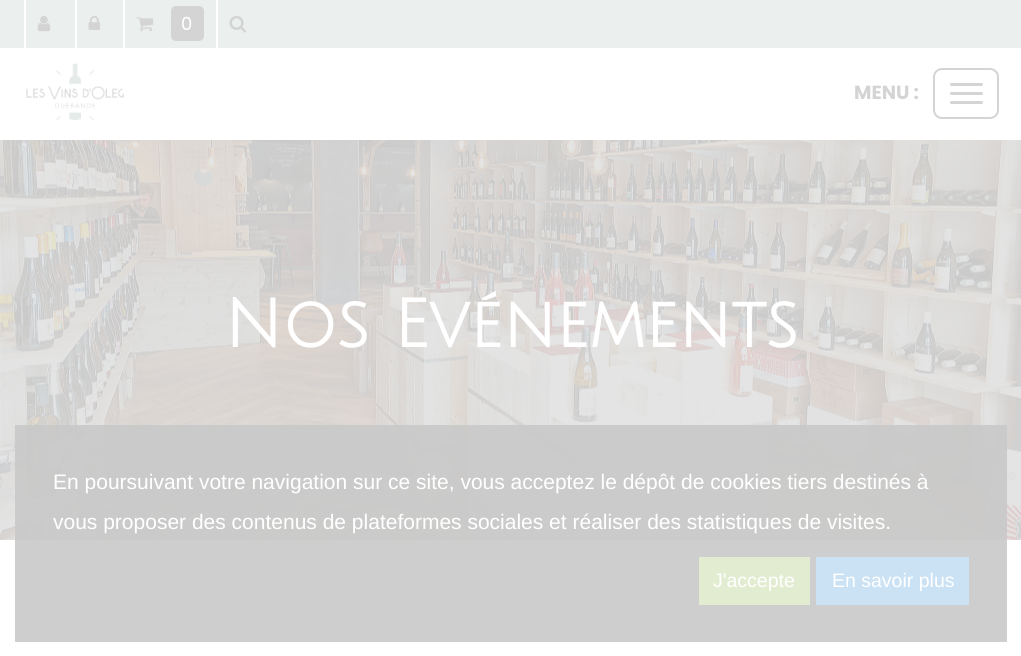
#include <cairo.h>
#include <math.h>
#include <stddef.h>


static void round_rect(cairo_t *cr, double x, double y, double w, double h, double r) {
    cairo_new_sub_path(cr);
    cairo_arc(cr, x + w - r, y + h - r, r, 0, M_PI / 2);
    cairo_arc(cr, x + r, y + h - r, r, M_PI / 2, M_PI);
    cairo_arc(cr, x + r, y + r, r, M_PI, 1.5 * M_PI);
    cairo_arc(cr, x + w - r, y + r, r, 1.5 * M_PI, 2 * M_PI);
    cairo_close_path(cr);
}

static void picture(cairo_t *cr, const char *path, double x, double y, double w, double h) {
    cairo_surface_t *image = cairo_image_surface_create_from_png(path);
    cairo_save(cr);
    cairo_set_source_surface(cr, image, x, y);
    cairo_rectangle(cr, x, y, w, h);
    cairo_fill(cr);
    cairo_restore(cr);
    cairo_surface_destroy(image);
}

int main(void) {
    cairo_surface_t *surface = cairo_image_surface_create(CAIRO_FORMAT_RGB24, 1021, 656);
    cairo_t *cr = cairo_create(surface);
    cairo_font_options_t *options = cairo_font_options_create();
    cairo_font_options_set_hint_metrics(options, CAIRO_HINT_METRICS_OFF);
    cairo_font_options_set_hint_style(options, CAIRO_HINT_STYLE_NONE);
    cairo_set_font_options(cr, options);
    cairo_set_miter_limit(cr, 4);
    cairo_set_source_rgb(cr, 1, 1, 1);
    cairo_paint(cr);
    cairo_set_source_rgb(cr, 0.918, 0.941, 0.933);
    cairo_rectangle(cr, 0, 0, 1021, 48);
    cairo_fill(cr);
    cairo_set_source_rgb(cr, 1, 1, 1);
    cairo_rectangle(cr, 24, 0, 2, 48);
    cairo_fill(cr);
    picture(cr, "img1.png", 37, 15, 14, 17);
    cairo_rectangle(cr, 75, 0, 2, 48);
    cairo_fill(cr);
    picture(cr, "img2.png", 88, 15, 13, 15);
    cairo_rectangle(cr, 123, 0, 2, 48);
    cairo_fill(cr);
    picture(cr, "img3.png", 136, 17, 18, 15);
    cairo_set_source_rgb(cr, 0.831, 0.831, 0.831);
    round_rect(cr, 171, 6, 33, 35, 5);
    cairo_fill(cr);
    cairo_select_font_face(cr, "Poppins", CAIRO_FONT_SLANT_NORMAL, CAIRO_FONT_WEIGHT_NORMAL);
    cairo_set_font_size(cr, 18);
    cairo_set_source_rgb(cr, 1, 1, 1);
    cairo_move_to(cr, 181, 30);
    cairo_show_text(cr, "0");
    cairo_rectangle(cr, 216, 0, 2, 48);
    cairo_fill(cr);
    picture(cr, "img4.png", 229, 15, 18, 18);
    picture(cr, "img5.png", 26, 63, 98, 58);
    cairo_select_font_face(cr, "Poppins", CAIRO_FONT_SLANT_NORMAL, CAIRO_FONT_WEIGHT_BOLD);
    cairo_set_font_size(cr, 19);
    cairo_set_source_rgb(cr, 0.831, 0.831, 0.831);
    cairo_move_to(cr, 854, 99);
    cairo_show_text(cr, "MENU :");
    round_rect(cr, 934, 69, 64, 49, 8);
    cairo_stroke(cr);
    round_rect(cr, 950, 83, 33, 3, 1.5);
    cairo_fill(cr);
    round_rect(cr, 950, 92, 33, 3, 1.5);
    cairo_fill(cr);
    round_rect(cr, 950, 101, 33, 3, 1.5);
    cairo_fill(cr);
    picture(cr, "img6.png", 0, 140, 1021, 400);
    cairo_select_font_face(cr, "Julius Sans One", CAIRO_FONT_SLANT_NORMAL, CAIRO_FONT_WEIGHT_BOLD);
    cairo_set_font_size(cr, 66.75);
    cairo_set_source_rgb(cr, 1, 1, 1);
    cairo_move_to(cr, 224, 347);
    cairo_show_text(cr, "Nos Evénements");
    cairo_set_source_rgba(cr, 0.788, 0.788, 0.788, 0.9);
    cairo_rectangle(cr, 15, 425, 992, 217);
    cairo_fill(cr);
    cairo_select_font_face(cr, "Liberation Sans", CAIRO_FONT_SLANT_NORMAL, CAIRO_FONT_WEIGHT_NORMAL);
    cairo_set_font_size(cr, 21);
    cairo_set_source_rgb(cr, 1, 1, 1);
    cairo_move_to(cr, 53, 489);
    cairo_show_text(cr, "En poursuivant votre navigation sur ce site, vous acceptez le dépôt de cookies tiers destinés à");
    cairo_move_to(cr, 53, 529);
    cairo_show_text(cr, "vous proposer des contenus de plateformes sociales et réaliser des statistiques de visites.");
    cairo_set_source_rgb(cr, 0.886, 0.922, 0.816);
    cairo_rectangle(cr, 699, 557, 111, 48);
    cairo_fill(cr);
    cairo_set_font_size(cr, 19.5);
    cairo_set_source_rgb(cr, 1, 1, 1);
    cairo_move_to(cr, 713, 587);
    cairo_show_text(cr, "J'accepte");
    cairo_set_source_rgb(cr, 0.796, 0.886, 0.957);
    cairo_rectangle(cr, 816, 557, 153, 48);
    cairo_fill(cr);
    cairo_set_source_rgb(cr, 1, 1, 1);
    cairo_move_to(cr, 832, 587);
    cairo_show_text(cr, "En savoir plus");
    cairo_surface_write_to_png(surface, "page.png");
    cairo_font_options_destroy(options);
    cairo_destroy(cr);
    cairo_surface_destroy(surface);
    return 0;
}
